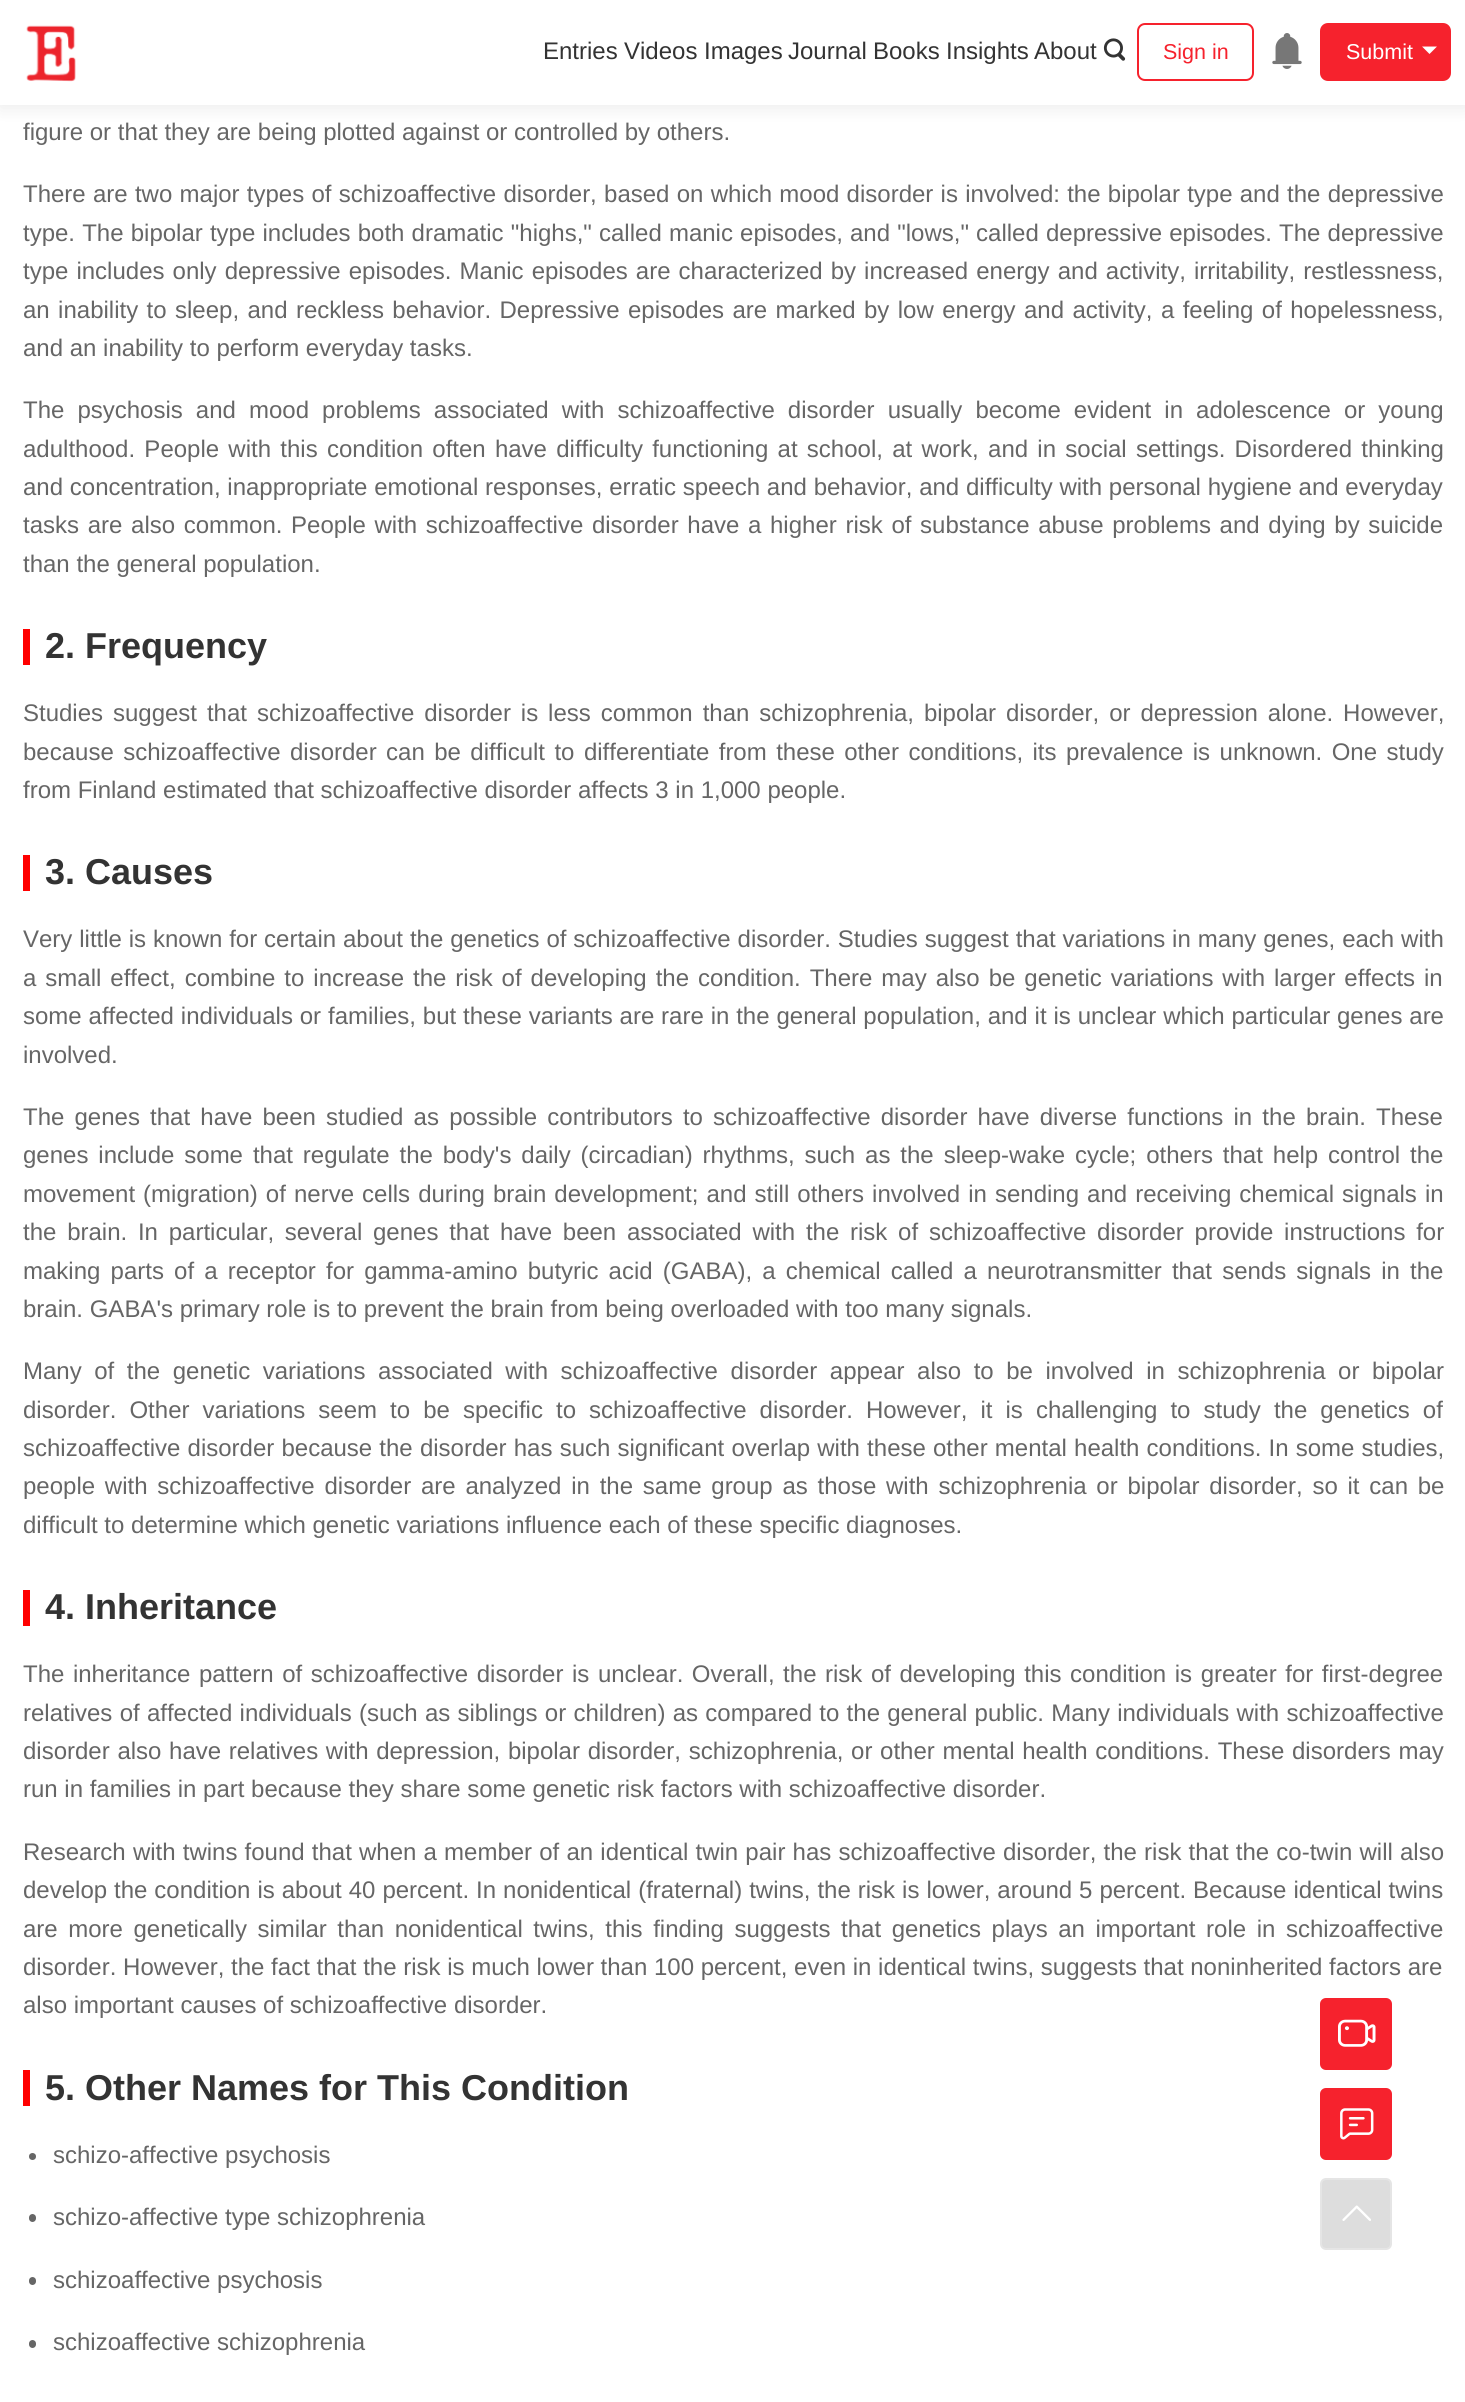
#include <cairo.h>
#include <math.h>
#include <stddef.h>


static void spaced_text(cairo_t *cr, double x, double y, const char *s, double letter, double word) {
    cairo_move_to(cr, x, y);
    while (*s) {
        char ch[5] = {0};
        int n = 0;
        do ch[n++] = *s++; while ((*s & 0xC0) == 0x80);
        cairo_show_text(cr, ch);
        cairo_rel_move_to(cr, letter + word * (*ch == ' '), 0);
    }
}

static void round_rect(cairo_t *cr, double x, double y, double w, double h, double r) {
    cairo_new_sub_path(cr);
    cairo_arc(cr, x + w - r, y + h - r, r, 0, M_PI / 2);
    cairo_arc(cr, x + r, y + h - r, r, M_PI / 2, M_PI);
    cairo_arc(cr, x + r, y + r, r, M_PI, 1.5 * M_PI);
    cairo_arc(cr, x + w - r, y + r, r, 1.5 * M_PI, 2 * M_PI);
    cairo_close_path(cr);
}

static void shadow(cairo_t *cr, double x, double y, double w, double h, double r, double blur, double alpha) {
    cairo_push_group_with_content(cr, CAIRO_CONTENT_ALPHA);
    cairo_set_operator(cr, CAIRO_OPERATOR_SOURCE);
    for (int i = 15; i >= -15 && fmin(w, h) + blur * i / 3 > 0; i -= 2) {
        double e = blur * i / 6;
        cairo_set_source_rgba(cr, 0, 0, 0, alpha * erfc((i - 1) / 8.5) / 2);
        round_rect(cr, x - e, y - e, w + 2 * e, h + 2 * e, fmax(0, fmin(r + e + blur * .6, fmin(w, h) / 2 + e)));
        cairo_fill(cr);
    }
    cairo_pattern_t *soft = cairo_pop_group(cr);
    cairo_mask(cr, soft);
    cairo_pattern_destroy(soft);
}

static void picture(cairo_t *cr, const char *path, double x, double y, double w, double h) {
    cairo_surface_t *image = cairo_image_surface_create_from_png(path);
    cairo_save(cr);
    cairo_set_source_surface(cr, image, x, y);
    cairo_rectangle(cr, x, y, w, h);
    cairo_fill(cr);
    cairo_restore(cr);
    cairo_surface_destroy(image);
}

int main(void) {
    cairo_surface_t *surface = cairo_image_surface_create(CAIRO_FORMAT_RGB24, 1465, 2402);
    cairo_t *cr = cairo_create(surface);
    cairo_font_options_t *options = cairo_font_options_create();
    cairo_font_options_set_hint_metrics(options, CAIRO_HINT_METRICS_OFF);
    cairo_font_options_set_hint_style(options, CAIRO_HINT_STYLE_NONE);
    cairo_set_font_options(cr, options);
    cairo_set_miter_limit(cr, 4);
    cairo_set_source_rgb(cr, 1, 1, 1);
    cairo_paint(cr);
    cairo_set_source_rgb(cr, 0, 0, 0);
    shadow(cr, 0, 3, 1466, 105, 0, 9, 0.08);
    cairo_set_source_rgb(cr, 1, 1, 1);
    cairo_rectangle(cr, 0, 0, 1465, 105);
    cairo_fill(cr);
    picture(cr, "img1.png", 26, 25, 50, 57);
    cairo_select_font_face(cr, "Liberation Sans", CAIRO_FONT_SLANT_NORMAL, CAIRO_FONT_WEIGHT_NORMAL);
    cairo_set_font_size(cr, 24);
    cairo_set_source_rgb(cr, 0.2, 0.2, 0.2);
    cairo_move_to(cr, 543, 59);
    cairo_show_text(cr, "Entries");
    cairo_move_to(cr, 624, 59);
    cairo_show_text(cr, "Videos");
    cairo_move_to(cr, 704, 59);
    cairo_show_text(cr, "Images");
    cairo_move_to(cr, 788, 59);
    cairo_show_text(cr, "Journal");
    cairo_move_to(cr, 873, 59);
    cairo_show_text(cr, "Books");
    cairo_move_to(cr, 946, 59);
    cairo_show_text(cr, "Insights");
    cairo_move_to(cr, 1034, 59);
    cairo_show_text(cr, "About");
    picture(cr, "img2.png", 1103, 38, 23, 23);
    round_rect(cr, 1138, 24, 115, 56, 7);
    cairo_set_source_rgb(cr, 0.961, 0.133, 0.176);
    cairo_stroke(cr);
    cairo_set_font_size(cr, 21.5);
    cairo_move_to(cr, 1163, 59);
    cairo_show_text(cr, "Sign in");
    picture(cr, "img3.png", 1272, 33, 30, 36);
    round_rect(cr, 1320, 23, 131, 58, 8);
    cairo_fill(cr);
    cairo_set_source_rgb(cr, 1, 1, 1);
    cairo_move_to(cr, 1346, 59);
    cairo_show_text(cr, "Submit");
    cairo_new_path(cr);
    cairo_move_to(cr, 1422, 46.5);
    cairo_line_to(cr, 1437, 46.5);
    cairo_line_to(cr, 1429.5, 54);
    cairo_close_path(cr);
    cairo_fill(cr);
    cairo_set_font_size(cr, 24);
    cairo_set_source_rgb(cr, 0.4, 0.4, 0.4);
    cairo_move_to(cr, 23, 140);
    cairo_show_text(cr, "figure or that they are being plotted against or controlled by others.");
    spaced_text(cr, 23, 202, "There are two major types of schizoaffective disorder, based on which mood disorder is involved: the bipolar type and the depressive", 0, 0.6);
    spaced_text(cr, 23, 241, "type. The bipolar type includes both dramatic \"highs,\" called manic episodes, and \"lows,\" called depressive episodes. The depressive", 0, 0.5);
    spaced_text(cr, 23, 279, "type includes only depressive episodes. Manic episodes are characterized by increased energy and activity, irritability, restlessness,", 0, 1.4);
    spaced_text(cr, 23, 318, "an inability to sleep, and reckless behavior. Depressive episodes are marked by low energy and activity, a feeling of hopelessness,", 0, 1.75);
    cairo_move_to(cr, 23, 356);
    cairo_show_text(cr, "and an inability to perform everyday tasks.");
    spaced_text(cr, 23, 418, "The psychosis and mood problems associated with schizoaffective disorder usually become evident in adolescence or young", 0, 6.4);
    spaced_text(cr, 23, 457, "adulthood. People with this condition often have difficulty functioning at school, at work, and in social settings. Disordered thinking", 0, 2.6);
    spaced_text(cr, 23, 495, "and concentration, inappropriate emotional responses, erratic speech and behavior, and difficulty with personal hygiene and everyday", 0, 0.1);
    spaced_text(cr, 23, 533, "tasks are also common. People with schizoaffective disorder have a higher risk of substance abuse problems and dying by suicide", 0, 2);
    cairo_move_to(cr, 23, 572);
    cairo_show_text(cr, "than the general population.");
    cairo_set_source_rgb(cr, 1, 0, 0);
    cairo_rectangle(cr, 23, 629, 7, 36);
    cairo_fill(cr);
    cairo_select_font_face(cr, "Liberation Sans", CAIRO_FONT_SLANT_NORMAL, CAIRO_FONT_WEIGHT_BOLD);
    cairo_set_font_size(cr, 36);
    cairo_set_source_rgb(cr, 0.2, 0.2, 0.2);
    cairo_move_to(cr, 45, 658);
    cairo_show_text(cr, "2. Frequency");
    cairo_select_font_face(cr, "Liberation Sans", CAIRO_FONT_SLANT_NORMAL, CAIRO_FONT_WEIGHT_NORMAL);
    cairo_set_font_size(cr, 24);
    cairo_set_source_rgb(cr, 0.4, 0.4, 0.4);
    spaced_text(cr, 23, 721, "Studies suggest that schizoaffective disorder is less common than schizophrenia, bipolar disorder, or depression alone. However,", 0, 3.25);
    spaced_text(cr, 23, 760, "because schizoaffective disorder can be difficult to differentiate from these other conditions, its prevalence is unknown. One study", 0, 2.75);
    cairo_move_to(cr, 23, 798);
    cairo_show_text(cr, "from Finland estimated that schizoaffective disorder affects 3 in 1,000 people.");
    cairo_set_source_rgb(cr, 1, 0, 0);
    cairo_rectangle(cr, 23, 855, 7, 36);
    cairo_fill(cr);
    cairo_select_font_face(cr, "Liberation Sans", CAIRO_FONT_SLANT_NORMAL, CAIRO_FONT_WEIGHT_BOLD);
    cairo_set_font_size(cr, 36);
    cairo_set_source_rgb(cr, 0.2, 0.2, 0.2);
    cairo_move_to(cr, 45, 884);
    cairo_show_text(cr, "3. Causes");
    cairo_select_font_face(cr, "Liberation Sans", CAIRO_FONT_SLANT_NORMAL, CAIRO_FONT_WEIGHT_NORMAL);
    cairo_set_font_size(cr, 24);
    cairo_set_source_rgb(cr, 0.4, 0.4, 0.4);
    spaced_text(cr, 23, 947, "Very little is known for certain about the genetics of schizoaffective disorder. Studies suggest that variations in many genes, each with", 0, 0.2);
    spaced_text(cr, 23, 986, "a small effect, combine to increase the risk of developing the condition. There may also be genetic variations with larger effects in", 0, 2.3);
    spaced_text(cr, 23, 1024, "some affected individuals or families, but these variants are rare in the general population, and it is unclear which particular genes are", 0, 0.2);
    cairo_move_to(cr, 23, 1063);
    cairo_show_text(cr, "involved.");
    spaced_text(cr, 23, 1125, "The genes that have been studied as possible contributors to schizoaffective disorder have diverse functions in the brain. These", 0, 3.5);
    spaced_text(cr, 23, 1163, "genes include some that regulate the body's daily (circadian) rhythms, such as the sleep-wake cycle; others that help control the", 0, 3.25);
    spaced_text(cr, 23, 1202, "movement (migration) of nerve cells during brain development; and still others involved in sending and receiving chemical signals in", 0, 1.4);
    spaced_text(cr, 23, 1240, "the brain. In particular, several genes that have been associated with the risk of schizoaffective disorder provide instructions for", 0, 4.1);
    spaced_text(cr, 23, 1279, "making parts of a receptor for gamma-amino butyric acid (GABA), a chemical called a neurotransmitter that sends signals in the", 0, 3.5);
    cairo_move_to(cr, 23, 1317);
    cairo_show_text(cr, "brain. GABA's primary role is to prevent the brain from being overloaded with too many signals.");
    spaced_text(cr, 23, 1379, "Many of the genetic variations associated with schizoaffective disorder appear also to be involved in schizophrenia or bipolar", 0, 5.9);
    spaced_text(cr, 23, 1418, "disorder. Other variations seem to be specific to schizoaffective disorder. However, it is challenging to study the genetics of", 0, 6.4);
    spaced_text(cr, 23, 1456, "schizoaffective disorder because the disorder has such significant overlap with these other mental health conditions. In some studies,", 0, 0.5);
    spaced_text(cr, 23, 1494, "people with schizoaffective disorder are analyzed in the same group as those with schizophrenia or bipolar disorder, so it can be", 0, 3.1);
    cairo_move_to(cr, 23, 1533);
    cairo_show_text(cr, "difficult to determine which genetic variations influence each of these specific diagnoses.");
    cairo_set_source_rgb(cr, 1, 0, 0);
    cairo_rectangle(cr, 23, 1590, 7, 36);
    cairo_fill(cr);
    cairo_select_font_face(cr, "Liberation Sans", CAIRO_FONT_SLANT_NORMAL, CAIRO_FONT_WEIGHT_BOLD);
    cairo_set_font_size(cr, 36);
    cairo_set_source_rgb(cr, 0.2, 0.2, 0.2);
    cairo_move_to(cr, 45, 1619);
    cairo_show_text(cr, "4. Inheritance");
    cairo_select_font_face(cr, "Liberation Sans", CAIRO_FONT_SLANT_NORMAL, CAIRO_FONT_WEIGHT_NORMAL);
    cairo_set_font_size(cr, 24);
    cairo_set_source_rgb(cr, 0.4, 0.4, 0.4);
    spaced_text(cr, 23, 1682, "The inheritance pattern of schizoaffective disorder is unclear. Overall, the risk of developing this condition is greater for first-degree", 0, 1.9);
    spaced_text(cr, 23, 1721, "relatives of affected individuals (such as siblings or children) as compared to the general public. Many individuals with schizoaffective", 0, 0.6);
    spaced_text(cr, 23, 1759, "disorder also have relatives with depression, bipolar disorder, schizophrenia, or other mental health conditions. These disorders may", 0, 1);
    cairo_move_to(cr, 23, 1797);
    cairo_show_text(cr, "run in families in part because they share some genetic risk factors with schizoaffective disorder.");
    spaced_text(cr, 23, 1860, "Research with twins found that when a member of an identical twin pair has schizoaffective disorder, the risk that the co-twin will also", 0, 0.5);
    spaced_text(cr, 23, 1898, "develop the condition is about 40 percent. In nonidentical (fraternal) twins, the risk is lower, around 5 percent. Because identical twins", 0, 0.3);
    spaced_text(cr, 23, 1937, "are more genetically similar than nonidentical twins, this finding suggests that genetics plays an important role in schizoaffective", 0, 3.9);
    cairo_move_to(cr, 23, 1975);
    cairo_show_text(cr, "disorder. However, the fact that the risk is much lower than 100 percent, even in identical twins, suggests that noninherited factors are");
    cairo_move_to(cr, 23, 2013);
    cairo_show_text(cr, "also important causes of schizoaffective disorder.");
    cairo_set_source_rgb(cr, 1, 0, 0);
    cairo_rectangle(cr, 23, 2070, 7, 36);
    cairo_fill(cr);
    cairo_select_font_face(cr, "Liberation Sans", CAIRO_FONT_SLANT_NORMAL, CAIRO_FONT_WEIGHT_BOLD);
    cairo_set_font_size(cr, 36);
    cairo_set_source_rgb(cr, 0.2, 0.2, 0.2);
    cairo_move_to(cr, 45, 2100);
    cairo_show_text(cr, "5. Other Names for This Condition");
    cairo_set_source_rgb(cr, 0.4, 0.4, 0.4);
    cairo_new_path(cr);
    cairo_arc(cr, 32.5, 2156.5, 3.5, 0, 2 * M_PI);
    cairo_fill(cr);
    cairo_select_font_face(cr, "Liberation Sans", CAIRO_FONT_SLANT_NORMAL, CAIRO_FONT_WEIGHT_NORMAL);
    cairo_set_font_size(cr, 24);
    cairo_move_to(cr, 53, 2163);
    cairo_show_text(cr, "schizo-affective psychosis");
    round_rect(cr, 29, 2214, 7, 8, 3.5);
    cairo_fill(cr);
    cairo_move_to(cr, 53, 2225);
    cairo_show_text(cr, "schizo-affective type schizophrenia");
    round_rect(cr, 29, 2277, 7, 8, 3.5);
    cairo_fill(cr);
    cairo_move_to(cr, 53, 2288);
    cairo_show_text(cr, "schizoaffective psychosis");
    round_rect(cr, 29, 2340, 7, 8, 3.5);
    cairo_fill(cr);
    cairo_move_to(cr, 53, 2350);
    cairo_show_text(cr, "schizoaffective schizophrenia");
    cairo_set_source_rgb(cr, 0.961, 0.133, 0.176);
    round_rect(cr, 1321, 1999, 70, 70, 5);
    cairo_fill_preserve(cr);
    cairo_stroke(cr);
    picture(cr, "img4.png", 1338, 2019, 38, 28);
    round_rect(cr, 1321, 2089, 70, 70, 5);
    cairo_fill_preserve(cr);
    cairo_stroke(cr);
    picture(cr, "img5.png", 1340, 2108, 34, 32);
    cairo_set_source_rgb(cr, 0.867, 0.867, 0.867);
    round_rect(cr, 1321, 2179, 70, 70, 5);
    cairo_fill_preserve(cr);
    cairo_set_source_rgb(cr, 0.898, 0.898, 0.898);
    cairo_stroke(cr);
    picture(cr, "img6.png", 1342, 2205, 29, 16);
    cairo_surface_write_to_png(surface, "page.png");
    cairo_font_options_destroy(options);
    cairo_destroy(cr);
    cairo_surface_destroy(surface);
    return 0;
}
